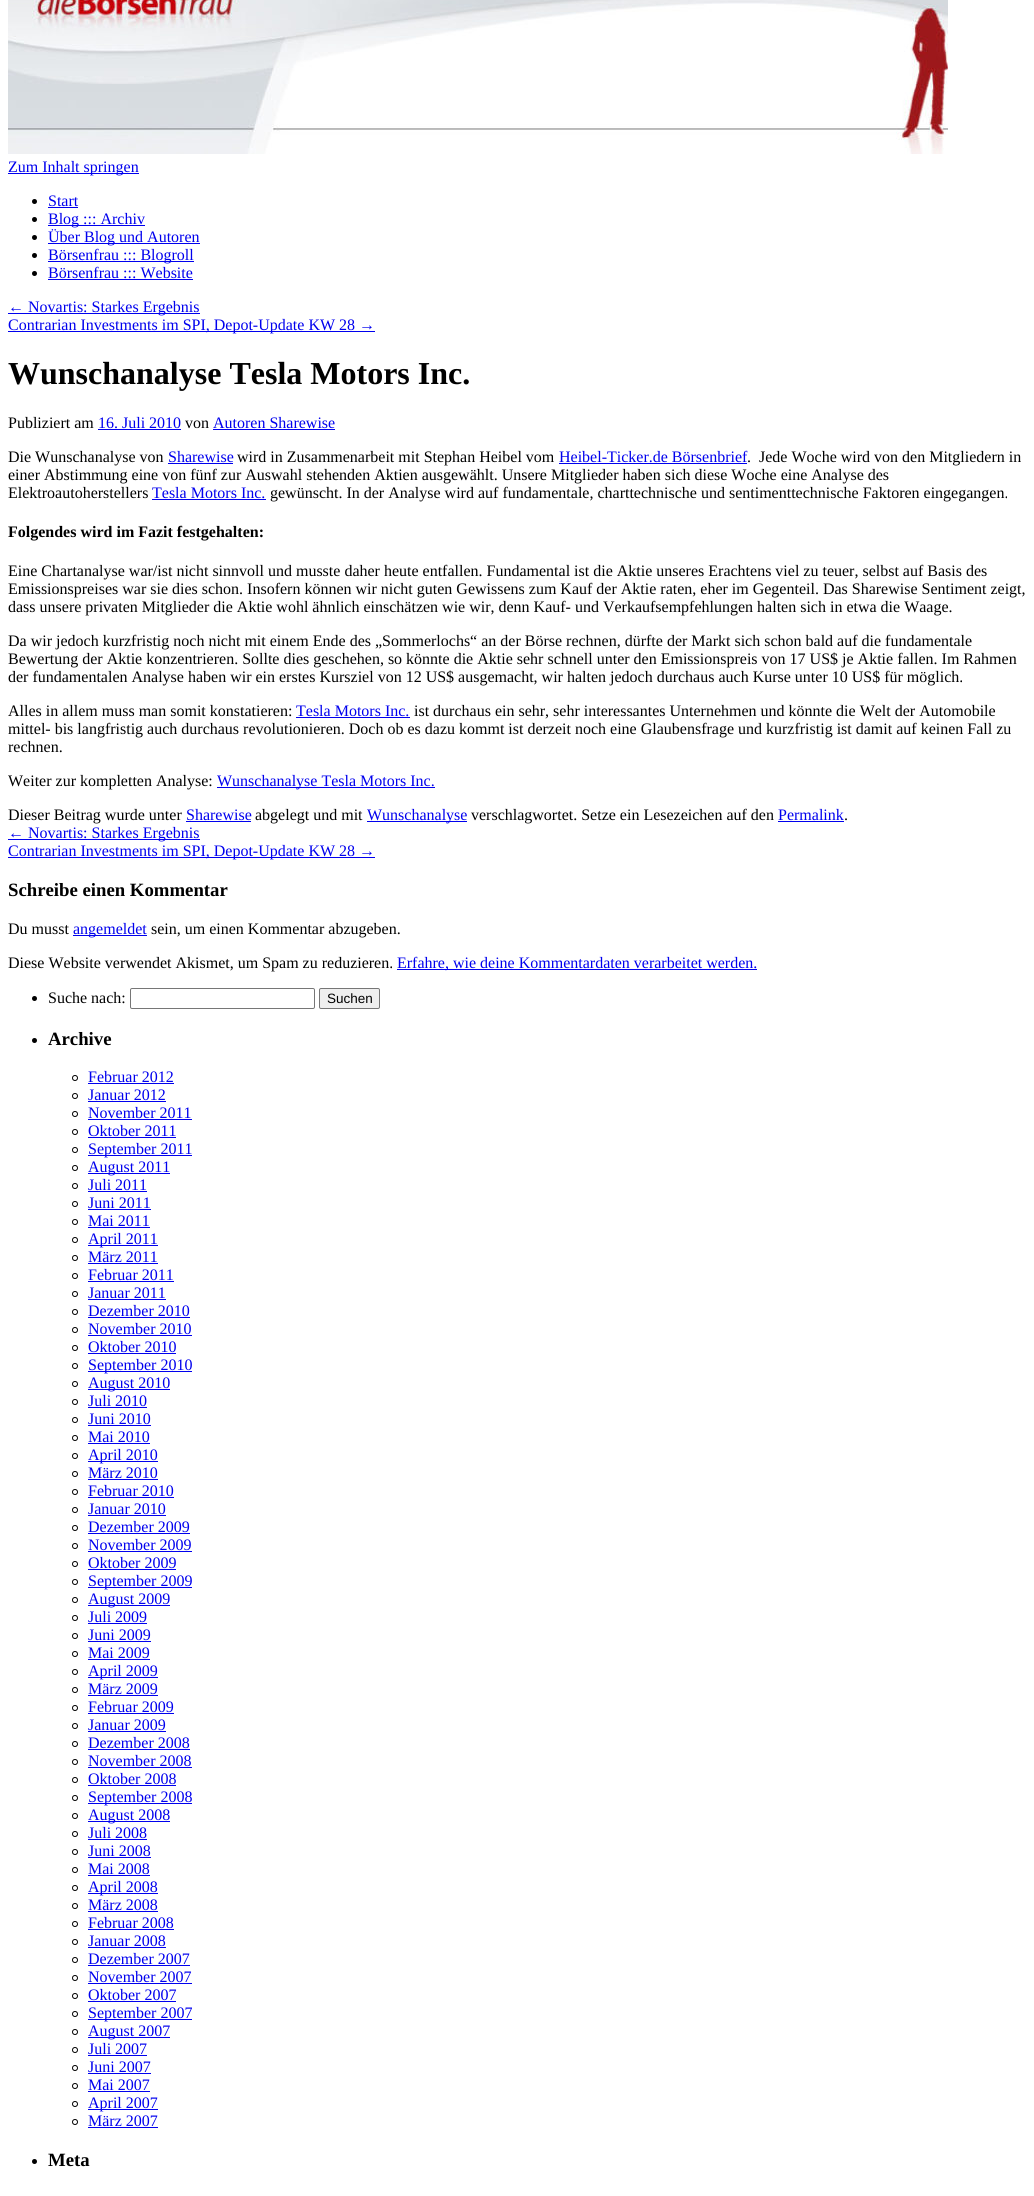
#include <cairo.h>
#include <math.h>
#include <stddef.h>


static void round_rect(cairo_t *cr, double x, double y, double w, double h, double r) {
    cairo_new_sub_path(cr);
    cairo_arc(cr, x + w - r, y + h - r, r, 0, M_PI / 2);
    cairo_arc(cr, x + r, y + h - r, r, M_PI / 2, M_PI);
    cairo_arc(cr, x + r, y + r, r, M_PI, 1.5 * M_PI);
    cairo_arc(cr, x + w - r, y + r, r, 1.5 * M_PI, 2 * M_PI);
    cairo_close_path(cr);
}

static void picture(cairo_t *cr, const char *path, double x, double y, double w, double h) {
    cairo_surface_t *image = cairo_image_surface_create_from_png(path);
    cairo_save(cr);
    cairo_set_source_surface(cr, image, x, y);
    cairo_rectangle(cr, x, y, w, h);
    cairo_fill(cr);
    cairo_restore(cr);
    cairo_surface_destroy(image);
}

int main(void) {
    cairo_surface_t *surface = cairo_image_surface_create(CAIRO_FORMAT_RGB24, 1034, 2196);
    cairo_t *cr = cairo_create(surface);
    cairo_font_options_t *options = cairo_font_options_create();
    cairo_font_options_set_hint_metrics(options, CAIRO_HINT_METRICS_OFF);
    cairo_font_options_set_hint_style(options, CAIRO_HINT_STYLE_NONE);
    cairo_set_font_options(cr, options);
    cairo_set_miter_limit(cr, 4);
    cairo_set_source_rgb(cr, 1, 1, 1);
    cairo_paint(cr);
    picture(cr, "img1.png", 8, 0, 940, 154);
    cairo_set_source_rgb(cr, 0, 0, 0.933);
    cairo_rectangle(cr, 8, 173, 131, 1);
    cairo_fill(cr);
    cairo_select_font_face(cr, "Liberation Serif", CAIRO_FONT_SLANT_NORMAL, CAIRO_FONT_WEIGHT_NORMAL);
    cairo_set_font_size(cr, 16);
    cairo_move_to(cr, 8, 172);
    cairo_show_text(cr, "Zum Inhalt springen");
    cairo_set_source_rgb(cr, 0, 0, 0);
    cairo_new_path(cr);
    cairo_arc(cr, 34.5, 201.5, 2.5, 0, 2 * M_PI);
    cairo_fill(cr);
    cairo_set_source_rgb(cr, 0, 0, 0.933);
    cairo_move_to(cr, 48, 206);
    cairo_show_text(cr, "Start");
    cairo_rectangle(cr, 48, 207, 30, 1);
    cairo_fill(cr);
    cairo_set_source_rgb(cr, 0, 0, 0);
    cairo_arc(cr, 34.5, 219.5, 2.5, 0, 2 * M_PI);
    cairo_fill(cr);
    cairo_set_source_rgb(cr, 0, 0, 0.933);
    cairo_rectangle(cr, 48, 225, 97, 1);
    cairo_fill(cr);
    cairo_move_to(cr, 48, 224);
    cairo_show_text(cr, "Blog ::: Archiv");
    cairo_set_source_rgb(cr, 0, 0, 0);
    cairo_new_path(cr);
    cairo_arc(cr, 34.5, 237.5, 2.5, 0, 2 * M_PI);
    cairo_fill(cr);
    cairo_set_source_rgb(cr, 0, 0, 0.933);
    cairo_rectangle(cr, 48, 243, 152, 1);
    cairo_fill(cr);
    cairo_move_to(cr, 48, 242);
    cairo_show_text(cr, "Über Blog und Autoren");
    cairo_set_source_rgb(cr, 0, 0, 0);
    cairo_new_path(cr);
    cairo_arc(cr, 34.5, 255.5, 2.5, 0, 2 * M_PI);
    cairo_fill(cr);
    cairo_set_source_rgb(cr, 0, 0, 0.933);
    cairo_rectangle(cr, 48, 261, 146, 1);
    cairo_fill(cr);
    cairo_move_to(cr, 48, 260);
    cairo_show_text(cr, "Börsenfrau ::: Blogroll");
    cairo_set_source_rgb(cr, 0, 0, 0);
    cairo_new_path(cr);
    cairo_arc(cr, 34.5, 273.5, 2.5, 0, 2 * M_PI);
    cairo_fill(cr);
    cairo_set_source_rgb(cr, 0, 0, 0.933);
    cairo_move_to(cr, 48, 278);
    cairo_show_text(cr, "Börsenfrau ::: Website");
    cairo_rectangle(cr, 48, 279, 145, 1);
    cairo_fill(cr);
    cairo_rectangle(cr, 8, 313, 192, 1);
    cairo_fill(cr);
    cairo_move_to(cr, 8, 312);
    cairo_show_text(cr, "← Novartis: Starkes Ergebnis");
    cairo_rectangle(cr, 8, 331, 367, 1);
    cairo_fill(cr);
    cairo_move_to(cr, 8, 330);
    cairo_show_text(cr, "Contrarian Investments im SPI, Depot-Update KW 28 →");
    cairo_select_font_face(cr, "Liberation Serif", CAIRO_FONT_SLANT_NORMAL, CAIRO_FONT_WEIGHT_BOLD);
    cairo_set_font_size(cr, 32);
    cairo_set_source_rgb(cr, 0, 0, 0);
    cairo_move_to(cr, 8, 384);
    cairo_show_text(cr, "Wunschanalyse Tesla Motors Inc.");
    cairo_select_font_face(cr, "Liberation Serif", CAIRO_FONT_SLANT_NORMAL, CAIRO_FONT_WEIGHT_NORMAL);
    cairo_set_font_size(cr, 16);
    cairo_move_to(cr, 8, 428);
    cairo_show_text(cr, "Publiziert am");
    cairo_set_source_rgb(cr, 0, 0, 0.933);
    cairo_move_to(cr, 98, 428);
    cairo_show_text(cr, "16. Juli 2010");
    cairo_rectangle(cr, 98, 429, 83, 1);
    cairo_fill(cr);
    cairo_set_source_rgb(cr, 0, 0, 0);
    cairo_move_to(cr, 185, 428);
    cairo_show_text(cr, "von");
    cairo_set_source_rgb(cr, 0, 0, 0.933);
    cairo_move_to(cr, 213, 428);
    cairo_show_text(cr, "Autoren Sharewise");
    cairo_rectangle(cr, 213, 429, 122, 1);
    cairo_fill(cr);
    cairo_set_source_rgb(cr, 0, 0, 0);
    cairo_move_to(cr, 8, 462);
    cairo_show_text(cr, "Die Wunschanalyse von");
    cairo_set_source_rgb(cr, 0, 0, 0.933);
    cairo_move_to(cr, 168, 462);
    cairo_show_text(cr, "Sharewise");
    cairo_rectangle(cr, 168, 463, 65, 1);
    cairo_fill(cr);
    cairo_set_source_rgb(cr, 0, 0, 0);
    cairo_move_to(cr, 237, 462);
    cairo_show_text(cr, "wird in Zusammenarbeit mit Stephan Heibel vom");
    cairo_set_source_rgb(cr, 0, 0, 0.933);
    cairo_move_to(cr, 559, 462);
    cairo_show_text(cr, "Heibel-Ticker.de Börsenbrief");
    cairo_rectangle(cr, 559, 463, 188, 1);
    cairo_fill(cr);
    cairo_set_source_rgb(cr, 0, 0, 0);
    cairo_move_to(cr, 747, 462);
    cairo_show_text(cr, ".  Jede Woche wird von den Mitgliedern in");
    cairo_move_to(cr, 8, 480);
    cairo_show_text(cr, "einer Abstimmung eine von fünf zur Auswahl stehenden Aktien ausgewählt. Unsere Mitglieder haben sich diese Woche eine Analyse des");
    cairo_move_to(cr, 8, 498);
    cairo_show_text(cr, "Elektroautoherstellers");
    cairo_set_source_rgb(cr, 0, 0, 0.933);
    cairo_move_to(cr, 152, 498);
    cairo_show_text(cr, "Tesla Motors Inc.");
    cairo_rectangle(cr, 152, 499, 114, 1);
    cairo_fill(cr);
    cairo_set_source_rgb(cr, 0, 0, 0);
    cairo_move_to(cr, 270, 498);
    cairo_show_text(cr, "gewünscht. In der Analyse wird auf fundamentale, charttechnische und sentimenttechnische Faktoren eingegangen.");
    cairo_select_font_face(cr, "Liberation Serif", CAIRO_FONT_SLANT_NORMAL, CAIRO_FONT_WEIGHT_BOLD);
    cairo_move_to(cr, 8, 537);
    cairo_show_text(cr, "Folgendes wird im Fazit festgehalten:");
    cairo_select_font_face(cr, "Liberation Serif", CAIRO_FONT_SLANT_NORMAL, CAIRO_FONT_WEIGHT_NORMAL);
    cairo_move_to(cr, 8, 576);
    cairo_show_text(cr, "Eine Chartanalyse war/ist nicht sinnvoll und musste daher heute entfallen. Fundamental ist die Aktie unseres Erachtens viel zu teuer, selbst auf Basis des");
    cairo_move_to(cr, 8, 594);
    cairo_show_text(cr, "Emissionspreises war sie dies schon. Insofern können wir nicht guten Gewissens zum Kauf der Aktie raten, eher im Gegenteil. Das Sharewise Sentiment zeigt,");
    cairo_move_to(cr, 8, 612);
    cairo_show_text(cr, "dass unsere privaten Mitglieder die Aktie wohl ähnlich einschätzen wie wir, denn Kauf- und Verkaufsempfehlungen halten sich in etwa die Waage.");
    cairo_move_to(cr, 8, 646);
    cairo_show_text(cr, "Da wir jedoch kurzfristig noch nicht mit einem Ende des „Sommerlochs“ an der Börse rechnen, dürfte der Markt sich schon bald auf die fundamentale");
    cairo_move_to(cr, 8, 664);
    cairo_show_text(cr, "Bewertung der Aktie konzentrieren. Sollte dies geschehen, so könnte die Aktie sehr schnell unter den Emissionspreis von 17 US$ je Aktie fallen. Im Rahmen");
    cairo_move_to(cr, 8, 682);
    cairo_show_text(cr, "der fundamentalen Analyse haben wir ein erstes Kursziel von 12 US$ ausgemacht, wir halten jedoch durchaus auch Kurse unter 10 US$ für möglich.");
    cairo_move_to(cr, 8, 716);
    cairo_show_text(cr, "Alles in allem muss man somit konstatieren:");
    cairo_set_source_rgb(cr, 0, 0, 0.933);
    cairo_move_to(cr, 296, 716);
    cairo_show_text(cr, "Tesla Motors Inc.");
    cairo_rectangle(cr, 296, 717, 114, 1);
    cairo_fill(cr);
    cairo_set_source_rgb(cr, 0, 0, 0);
    cairo_move_to(cr, 414, 716);
    cairo_show_text(cr, "ist durchaus ein sehr, sehr interessantes Unternehmen und könnte die Welt der Automobile");
    cairo_move_to(cr, 8, 734);
    cairo_show_text(cr, "mittel- bis langfristig auch durchaus revolutionieren. Doch ob es dazu kommt ist derzeit noch eine Glaubensfrage und kurzfristig ist damit auf keinen Fall zu");
    cairo_move_to(cr, 8, 752);
    cairo_show_text(cr, "rechnen.");
    cairo_move_to(cr, 8, 786);
    cairo_show_text(cr, "Weiter zur kompletten Analyse:");
    cairo_set_source_rgb(cr, 0, 0, 0.933);
    cairo_rectangle(cr, 217, 787, 218, 1);
    cairo_fill(cr);
    cairo_move_to(cr, 217, 786);
    cairo_show_text(cr, "Wunschanalyse Tesla Motors Inc.");
    cairo_set_source_rgb(cr, 0, 0, 0);
    cairo_move_to(cr, 8, 820);
    cairo_show_text(cr, "Dieser Beitrag wurde unter");
    cairo_set_source_rgb(cr, 0, 0, 0.933);
    cairo_move_to(cr, 186, 820);
    cairo_show_text(cr, "Sharewise");
    cairo_rectangle(cr, 186, 821, 65, 1);
    cairo_fill(cr);
    cairo_set_source_rgb(cr, 0, 0, 0);
    cairo_move_to(cr, 255, 820);
    cairo_show_text(cr, "abgelegt und mit");
    cairo_set_source_rgb(cr, 0, 0, 0.933);
    cairo_rectangle(cr, 367, 821, 100, 1);
    cairo_fill(cr);
    cairo_move_to(cr, 367, 820);
    cairo_show_text(cr, "Wunschanalyse");
    cairo_set_source_rgb(cr, 0, 0, 0);
    cairo_move_to(cr, 471, 820);
    cairo_show_text(cr, "verschlagwortet. Setze ein Lesezeichen auf den");
    cairo_set_source_rgb(cr, 0, 0, 0.933);
    cairo_move_to(cr, 778, 820);
    cairo_show_text(cr, "Permalink");
    cairo_rectangle(cr, 778, 821, 66, 1);
    cairo_fill(cr);
    cairo_set_source_rgb(cr, 0, 0, 0);
    cairo_move_to(cr, 844, 820);
    cairo_show_text(cr, ".");
    cairo_set_source_rgb(cr, 0, 0, 0.933);
    cairo_rectangle(cr, 8, 839, 192, 1);
    cairo_fill(cr);
    cairo_move_to(cr, 8, 838);
    cairo_show_text(cr, "← Novartis: Starkes Ergebnis");
    cairo_rectangle(cr, 8, 857, 367, 1);
    cairo_fill(cr);
    cairo_move_to(cr, 8, 856);
    cairo_show_text(cr, "Contrarian Investments im SPI, Depot-Update KW 28 →");
    cairo_select_font_face(cr, "Liberation Serif", CAIRO_FONT_SLANT_NORMAL, CAIRO_FONT_WEIGHT_BOLD);
    cairo_set_font_size(cr, 18.75);
    cairo_set_source_rgb(cr, 0, 0, 0);
    cairo_move_to(cr, 8, 896);
    cairo_show_text(cr, "Schreibe einen Kommentar");
    cairo_select_font_face(cr, "Liberation Serif", CAIRO_FONT_SLANT_NORMAL, CAIRO_FONT_WEIGHT_NORMAL);
    cairo_set_font_size(cr, 16);
    cairo_move_to(cr, 8, 934);
    cairo_show_text(cr, "Du musst");
    cairo_set_source_rgb(cr, 0, 0, 0.933);
    cairo_rectangle(cr, 73, 935, 74, 1);
    cairo_fill(cr);
    cairo_move_to(cr, 73, 934);
    cairo_show_text(cr, "angemeldet");
    cairo_set_source_rgb(cr, 0, 0, 0);
    cairo_move_to(cr, 151, 934);
    cairo_show_text(cr, "sein, um einen Kommentar abzugeben.");
    cairo_move_to(cr, 8, 968);
    cairo_show_text(cr, "Diese Website verwendet Akismet, um Spam zu reduzieren.");
    cairo_set_source_rgb(cr, 0, 0, 0.933);
    cairo_rectangle(cr, 397, 969, 360, 1);
    cairo_fill(cr);
    cairo_move_to(cr, 397, 968);
    cairo_show_text(cr, "Erfahre, wie deine Kommentardaten verarbeitet werden.");
    cairo_set_source_rgb(cr, 0, 0, 0);
    cairo_new_path(cr);
    cairo_arc(cr, 34.5, 998.5, 2.5, 0, 2 * M_PI);
    cairo_fill(cr);
    cairo_move_to(cr, 48, 1003);
    cairo_show_text(cr, "Suche nach:");
    round_rect(cr, 130.5, 988.5, 184, 20, 1.5);
    cairo_set_source_rgb(cr, 0.463, 0.463, 0.463);
    cairo_set_line_width(cr, 1);
    cairo_stroke(cr);
    cairo_set_source_rgb(cr, 0.937, 0.937, 0.937);
    round_rect(cr, 319.5, 988.5, 60, 20, 1.5);
    cairo_fill_preserve(cr);
    cairo_set_source_rgb(cr, 0.463, 0.463, 0.463);
    cairo_stroke(cr);
    cairo_select_font_face(cr, "Liberation Sans", CAIRO_FONT_SLANT_NORMAL, CAIRO_FONT_WEIGHT_NORMAL);
    cairo_set_font_size(cr, 13.5);
    cairo_set_source_rgb(cr, 0, 0, 0);
    cairo_move_to(cr, 327, 1003);
    cairo_show_text(cr, "Suchen");
    cairo_new_path(cr);
    cairo_arc(cr, 34.5, 1040.5, 2.5, 0, 2 * M_PI);
    cairo_fill(cr);
    cairo_select_font_face(cr, "Liberation Serif", CAIRO_FONT_SLANT_NORMAL, CAIRO_FONT_WEIGHT_BOLD);
    cairo_set_font_size(cr, 18.75);
    cairo_move_to(cr, 48, 1045);
    cairo_show_text(cr, "Archive");
    cairo_new_path(cr);
    cairo_arc(cr, 75, 1078, 2.5, 0, 2 * M_PI);
    cairo_stroke(cr);
    cairo_select_font_face(cr, "Liberation Serif", CAIRO_FONT_SLANT_NORMAL, CAIRO_FONT_WEIGHT_NORMAL);
    cairo_set_font_size(cr, 16);
    cairo_set_source_rgb(cr, 0, 0, 0.933);
    cairo_move_to(cr, 88, 1082);
    cairo_show_text(cr, "Februar 2012");
    cairo_rectangle(cr, 88, 1083, 86, 1);
    cairo_fill(cr);
    cairo_arc(cr, 75, 1096, 2.5, 0, 2 * M_PI);
    cairo_set_source_rgb(cr, 0, 0, 0);
    cairo_stroke(cr);
    cairo_set_source_rgb(cr, 0, 0, 0.933);
    cairo_move_to(cr, 88, 1100);
    cairo_show_text(cr, "Januar 2012");
    cairo_rectangle(cr, 88, 1101, 78, 1);
    cairo_fill(cr);
    cairo_arc(cr, 75, 1114, 2.5, 0, 2 * M_PI);
    cairo_set_source_rgb(cr, 0, 0, 0);
    cairo_stroke(cr);
    cairo_set_source_rgb(cr, 0, 0, 0.933);
    cairo_move_to(cr, 88, 1118);
    cairo_show_text(cr, "November 2011");
    cairo_rectangle(cr, 88, 1119, 104, 1);
    cairo_fill(cr);
    cairo_arc(cr, 75, 1132, 2.5, 0, 2 * M_PI);
    cairo_set_source_rgb(cr, 0, 0, 0);
    cairo_stroke(cr);
    cairo_set_source_rgb(cr, 0, 0, 0.933);
    cairo_move_to(cr, 88, 1136);
    cairo_show_text(cr, "Oktober 2011");
    cairo_rectangle(cr, 88, 1137, 88, 1);
    cairo_fill(cr);
    cairo_arc(cr, 75, 1150, 2.5, 0, 2 * M_PI);
    cairo_set_source_rgb(cr, 0, 0, 0);
    cairo_stroke(cr);
    cairo_set_source_rgb(cr, 0, 0, 0.933);
    cairo_rectangle(cr, 88, 1155, 104, 1);
    cairo_fill(cr);
    cairo_move_to(cr, 88, 1154);
    cairo_show_text(cr, "September 2011");
    cairo_new_path(cr);
    cairo_arc(cr, 75, 1168, 2.5, 0, 2 * M_PI);
    cairo_set_source_rgb(cr, 0, 0, 0);
    cairo_stroke(cr);
    cairo_set_source_rgb(cr, 0, 0, 0.933);
    cairo_rectangle(cr, 88, 1173, 82, 1);
    cairo_fill(cr);
    cairo_move_to(cr, 88, 1172);
    cairo_show_text(cr, "August 2011");
    cairo_new_path(cr);
    cairo_arc(cr, 75, 1186, 2.5, 0, 2 * M_PI);
    cairo_set_source_rgb(cr, 0, 0, 0);
    cairo_stroke(cr);
    cairo_set_source_rgb(cr, 0, 0, 0.933);
    cairo_move_to(cr, 88, 1190);
    cairo_show_text(cr, "Juli 2011");
    cairo_rectangle(cr, 88, 1191, 59, 1);
    cairo_fill(cr);
    cairo_arc(cr, 75, 1204, 2.5, 0, 2 * M_PI);
    cairo_set_source_rgb(cr, 0, 0, 0);
    cairo_stroke(cr);
    cairo_set_source_rgb(cr, 0, 0, 0.933);
    cairo_move_to(cr, 88, 1208);
    cairo_show_text(cr, "Juni 2011");
    cairo_rectangle(cr, 88, 1209, 63, 1);
    cairo_fill(cr);
    cairo_arc(cr, 75, 1222, 2.5, 0, 2 * M_PI);
    cairo_set_source_rgb(cr, 0, 0, 0);
    cairo_stroke(cr);
    cairo_set_source_rgb(cr, 0, 0, 0.933);
    cairo_move_to(cr, 88, 1226);
    cairo_show_text(cr, "Mai 2011");
    cairo_rectangle(cr, 88, 1227, 62, 1);
    cairo_fill(cr);
    cairo_arc(cr, 75, 1240, 2.5, 0, 2 * M_PI);
    cairo_set_source_rgb(cr, 0, 0, 0);
    cairo_stroke(cr);
    cairo_set_source_rgb(cr, 0, 0, 0.933);
    cairo_rectangle(cr, 88, 1245, 70, 1);
    cairo_fill(cr);
    cairo_move_to(cr, 88, 1244);
    cairo_show_text(cr, "April 2011");
    cairo_new_path(cr);
    cairo_arc(cr, 75, 1258, 2.5, 0, 2 * M_PI);
    cairo_set_source_rgb(cr, 0, 0, 0);
    cairo_stroke(cr);
    cairo_set_source_rgb(cr, 0, 0, 0.933);
    cairo_move_to(cr, 88, 1262);
    cairo_show_text(cr, "März 2011");
    cairo_rectangle(cr, 88, 1263, 70, 1);
    cairo_fill(cr);
    cairo_arc(cr, 75, 1276, 2.5, 0, 2 * M_PI);
    cairo_set_source_rgb(cr, 0, 0, 0);
    cairo_stroke(cr);
    cairo_set_source_rgb(cr, 0, 0, 0.933);
    cairo_move_to(cr, 88, 1280);
    cairo_show_text(cr, "Februar 2011");
    cairo_rectangle(cr, 88, 1281, 86, 1);
    cairo_fill(cr);
    cairo_arc(cr, 75, 1294, 2.5, 0, 2 * M_PI);
    cairo_set_source_rgb(cr, 0, 0, 0);
    cairo_stroke(cr);
    cairo_set_source_rgb(cr, 0, 0, 0.933);
    cairo_move_to(cr, 88, 1298);
    cairo_show_text(cr, "Januar 2011");
    cairo_rectangle(cr, 88, 1299, 78, 1);
    cairo_fill(cr);
    cairo_arc(cr, 75, 1312, 2.5, 0, 2 * M_PI);
    cairo_set_source_rgb(cr, 0, 0, 0);
    cairo_stroke(cr);
    cairo_set_source_rgb(cr, 0, 0, 0.933);
    cairo_move_to(cr, 88, 1316);
    cairo_show_text(cr, "Dezember 2010");
    cairo_rectangle(cr, 88, 1317, 102, 1);
    cairo_fill(cr);
    cairo_arc(cr, 75, 1330, 2.5, 0, 2 * M_PI);
    cairo_set_source_rgb(cr, 0, 0, 0);
    cairo_stroke(cr);
    cairo_set_source_rgb(cr, 0, 0, 0.933);
    cairo_move_to(cr, 88, 1334);
    cairo_show_text(cr, "November 2010");
    cairo_rectangle(cr, 88, 1335, 104, 1);
    cairo_fill(cr);
    cairo_arc(cr, 75, 1348, 2.5, 0, 2 * M_PI);
    cairo_set_source_rgb(cr, 0, 0, 0);
    cairo_stroke(cr);
    cairo_set_source_rgb(cr, 0, 0, 0.933);
    cairo_move_to(cr, 88, 1352);
    cairo_show_text(cr, "Oktober 2010");
    cairo_rectangle(cr, 88, 1353, 88, 1);
    cairo_fill(cr);
    cairo_arc(cr, 75, 1366, 2.5, 0, 2 * M_PI);
    cairo_set_source_rgb(cr, 0, 0, 0);
    cairo_stroke(cr);
    cairo_set_source_rgb(cr, 0, 0, 0.933);
    cairo_rectangle(cr, 88, 1371, 104, 1);
    cairo_fill(cr);
    cairo_move_to(cr, 88, 1370);
    cairo_show_text(cr, "September 2010");
    cairo_new_path(cr);
    cairo_arc(cr, 75, 1384, 2.5, 0, 2 * M_PI);
    cairo_set_source_rgb(cr, 0, 0, 0);
    cairo_stroke(cr);
    cairo_set_source_rgb(cr, 0, 0, 0.933);
    cairo_rectangle(cr, 88, 1389, 82, 1);
    cairo_fill(cr);
    cairo_move_to(cr, 88, 1388);
    cairo_show_text(cr, "August 2010");
    cairo_new_path(cr);
    cairo_arc(cr, 75, 1402, 2.5, 0, 2 * M_PI);
    cairo_set_source_rgb(cr, 0, 0, 0);
    cairo_stroke(cr);
    cairo_set_source_rgb(cr, 0, 0, 0.933);
    cairo_move_to(cr, 88, 1406);
    cairo_show_text(cr, "Juli 2010");
    cairo_rectangle(cr, 88, 1407, 59, 1);
    cairo_fill(cr);
    cairo_arc(cr, 75, 1420, 2.5, 0, 2 * M_PI);
    cairo_set_source_rgb(cr, 0, 0, 0);
    cairo_stroke(cr);
    cairo_set_source_rgb(cr, 0, 0, 0.933);
    cairo_move_to(cr, 88, 1424);
    cairo_show_text(cr, "Juni 2010");
    cairo_rectangle(cr, 88, 1425, 63, 1);
    cairo_fill(cr);
    cairo_arc(cr, 75, 1438, 2.5, 0, 2 * M_PI);
    cairo_set_source_rgb(cr, 0, 0, 0);
    cairo_stroke(cr);
    cairo_set_source_rgb(cr, 0, 0, 0.933);
    cairo_move_to(cr, 88, 1442);
    cairo_show_text(cr, "Mai 2010");
    cairo_rectangle(cr, 88, 1443, 62, 1);
    cairo_fill(cr);
    cairo_arc(cr, 75, 1456, 2.5, 0, 2 * M_PI);
    cairo_set_source_rgb(cr, 0, 0, 0);
    cairo_stroke(cr);
    cairo_set_source_rgb(cr, 0, 0, 0.933);
    cairo_rectangle(cr, 88, 1461, 70, 1);
    cairo_fill(cr);
    cairo_move_to(cr, 88, 1460);
    cairo_show_text(cr, "April 2010");
    cairo_new_path(cr);
    cairo_arc(cr, 75, 1474, 2.5, 0, 2 * M_PI);
    cairo_set_source_rgb(cr, 0, 0, 0);
    cairo_stroke(cr);
    cairo_set_source_rgb(cr, 0, 0, 0.933);
    cairo_move_to(cr, 88, 1478);
    cairo_show_text(cr, "März 2010");
    cairo_rectangle(cr, 88, 1479, 70, 1);
    cairo_fill(cr);
    cairo_arc(cr, 75, 1492, 2.5, 0, 2 * M_PI);
    cairo_set_source_rgb(cr, 0, 0, 0);
    cairo_stroke(cr);
    cairo_set_source_rgb(cr, 0, 0, 0.933);
    cairo_move_to(cr, 88, 1496);
    cairo_show_text(cr, "Februar 2010");
    cairo_rectangle(cr, 88, 1497, 86, 1);
    cairo_fill(cr);
    cairo_arc(cr, 75, 1510, 2.5, 0, 2 * M_PI);
    cairo_set_source_rgb(cr, 0, 0, 0);
    cairo_stroke(cr);
    cairo_set_source_rgb(cr, 0, 0, 0.933);
    cairo_move_to(cr, 88, 1514);
    cairo_show_text(cr, "Januar 2010");
    cairo_rectangle(cr, 88, 1515, 78, 1);
    cairo_fill(cr);
    cairo_arc(cr, 75, 1528, 2.5, 0, 2 * M_PI);
    cairo_set_source_rgb(cr, 0, 0, 0);
    cairo_stroke(cr);
    cairo_set_source_rgb(cr, 0, 0, 0.933);
    cairo_move_to(cr, 88, 1532);
    cairo_show_text(cr, "Dezember 2009");
    cairo_rectangle(cr, 88, 1533, 102, 1);
    cairo_fill(cr);
    cairo_arc(cr, 75, 1546, 2.5, 0, 2 * M_PI);
    cairo_set_source_rgb(cr, 0, 0, 0);
    cairo_stroke(cr);
    cairo_set_source_rgb(cr, 0, 0, 0.933);
    cairo_move_to(cr, 88, 1550);
    cairo_show_text(cr, "November 2009");
    cairo_rectangle(cr, 88, 1551, 104, 1);
    cairo_fill(cr);
    cairo_arc(cr, 75, 1564, 2.5, 0, 2 * M_PI);
    cairo_set_source_rgb(cr, 0, 0, 0);
    cairo_stroke(cr);
    cairo_set_source_rgb(cr, 0, 0, 0.933);
    cairo_move_to(cr, 88, 1568);
    cairo_show_text(cr, "Oktober 2009");
    cairo_rectangle(cr, 88, 1569, 88, 1);
    cairo_fill(cr);
    cairo_arc(cr, 75, 1582, 2.5, 0, 2 * M_PI);
    cairo_set_source_rgb(cr, 0, 0, 0);
    cairo_stroke(cr);
    cairo_set_source_rgb(cr, 0, 0, 0.933);
    cairo_rectangle(cr, 88, 1587, 104, 1);
    cairo_fill(cr);
    cairo_move_to(cr, 88, 1586);
    cairo_show_text(cr, "September 2009");
    cairo_new_path(cr);
    cairo_arc(cr, 75, 1600, 2.5, 0, 2 * M_PI);
    cairo_set_source_rgb(cr, 0, 0, 0);
    cairo_stroke(cr);
    cairo_set_source_rgb(cr, 0, 0, 0.933);
    cairo_rectangle(cr, 88, 1605, 82, 1);
    cairo_fill(cr);
    cairo_move_to(cr, 88, 1604);
    cairo_show_text(cr, "August 2009");
    cairo_new_path(cr);
    cairo_arc(cr, 75, 1618, 2.5, 0, 2 * M_PI);
    cairo_set_source_rgb(cr, 0, 0, 0);
    cairo_stroke(cr);
    cairo_set_source_rgb(cr, 0, 0, 0.933);
    cairo_move_to(cr, 88, 1622);
    cairo_show_text(cr, "Juli 2009");
    cairo_rectangle(cr, 88, 1623, 59, 1);
    cairo_fill(cr);
    cairo_arc(cr, 75, 1636, 2.5, 0, 2 * M_PI);
    cairo_set_source_rgb(cr, 0, 0, 0);
    cairo_stroke(cr);
    cairo_set_source_rgb(cr, 0, 0, 0.933);
    cairo_move_to(cr, 88, 1640);
    cairo_show_text(cr, "Juni 2009");
    cairo_rectangle(cr, 88, 1641, 63, 1);
    cairo_fill(cr);
    cairo_arc(cr, 75, 1654, 2.5, 0, 2 * M_PI);
    cairo_set_source_rgb(cr, 0, 0, 0);
    cairo_stroke(cr);
    cairo_set_source_rgb(cr, 0, 0, 0.933);
    cairo_move_to(cr, 88, 1658);
    cairo_show_text(cr, "Mai 2009");
    cairo_rectangle(cr, 88, 1659, 62, 1);
    cairo_fill(cr);
    cairo_arc(cr, 75, 1672, 2.5, 0, 2 * M_PI);
    cairo_set_source_rgb(cr, 0, 0, 0);
    cairo_stroke(cr);
    cairo_set_source_rgb(cr, 0, 0, 0.933);
    cairo_rectangle(cr, 88, 1677, 70, 1);
    cairo_fill(cr);
    cairo_move_to(cr, 88, 1676);
    cairo_show_text(cr, "April 2009");
    cairo_new_path(cr);
    cairo_arc(cr, 75, 1690, 2.5, 0, 2 * M_PI);
    cairo_set_source_rgb(cr, 0, 0, 0);
    cairo_stroke(cr);
    cairo_set_source_rgb(cr, 0, 0, 0.933);
    cairo_move_to(cr, 88, 1694);
    cairo_show_text(cr, "März 2009");
    cairo_rectangle(cr, 88, 1695, 70, 1);
    cairo_fill(cr);
    cairo_arc(cr, 75, 1708, 2.5, 0, 2 * M_PI);
    cairo_set_source_rgb(cr, 0, 0, 0);
    cairo_stroke(cr);
    cairo_set_source_rgb(cr, 0, 0, 0.933);
    cairo_move_to(cr, 88, 1712);
    cairo_show_text(cr, "Februar 2009");
    cairo_rectangle(cr, 88, 1713, 86, 1);
    cairo_fill(cr);
    cairo_arc(cr, 75, 1726, 2.5, 0, 2 * M_PI);
    cairo_set_source_rgb(cr, 0, 0, 0);
    cairo_stroke(cr);
    cairo_set_source_rgb(cr, 0, 0, 0.933);
    cairo_move_to(cr, 88, 1730);
    cairo_show_text(cr, "Januar 2009");
    cairo_rectangle(cr, 88, 1731, 78, 1);
    cairo_fill(cr);
    cairo_arc(cr, 75, 1744, 2.5, 0, 2 * M_PI);
    cairo_set_source_rgb(cr, 0, 0, 0);
    cairo_stroke(cr);
    cairo_set_source_rgb(cr, 0, 0, 0.933);
    cairo_move_to(cr, 88, 1748);
    cairo_show_text(cr, "Dezember 2008");
    cairo_rectangle(cr, 88, 1749, 102, 1);
    cairo_fill(cr);
    cairo_arc(cr, 75, 1762, 2.5, 0, 2 * M_PI);
    cairo_set_source_rgb(cr, 0, 0, 0);
    cairo_stroke(cr);
    cairo_set_source_rgb(cr, 0, 0, 0.933);
    cairo_move_to(cr, 88, 1766);
    cairo_show_text(cr, "November 2008");
    cairo_rectangle(cr, 88, 1767, 104, 1);
    cairo_fill(cr);
    cairo_arc(cr, 75, 1780, 2.5, 0, 2 * M_PI);
    cairo_set_source_rgb(cr, 0, 0, 0);
    cairo_stroke(cr);
    cairo_set_source_rgb(cr, 0, 0, 0.933);
    cairo_move_to(cr, 88, 1784);
    cairo_show_text(cr, "Oktober 2008");
    cairo_rectangle(cr, 88, 1785, 88, 1);
    cairo_fill(cr);
    cairo_arc(cr, 75, 1798, 2.5, 0, 2 * M_PI);
    cairo_set_source_rgb(cr, 0, 0, 0);
    cairo_stroke(cr);
    cairo_set_source_rgb(cr, 0, 0, 0.933);
    cairo_rectangle(cr, 88, 1803, 104, 1);
    cairo_fill(cr);
    cairo_move_to(cr, 88, 1802);
    cairo_show_text(cr, "September 2008");
    cairo_new_path(cr);
    cairo_arc(cr, 75, 1816, 2.5, 0, 2 * M_PI);
    cairo_set_source_rgb(cr, 0, 0, 0);
    cairo_stroke(cr);
    cairo_set_source_rgb(cr, 0, 0, 0.933);
    cairo_rectangle(cr, 88, 1821, 82, 1);
    cairo_fill(cr);
    cairo_move_to(cr, 88, 1820);
    cairo_show_text(cr, "August 2008");
    cairo_new_path(cr);
    cairo_arc(cr, 75, 1834, 2.5, 0, 2 * M_PI);
    cairo_set_source_rgb(cr, 0, 0, 0);
    cairo_stroke(cr);
    cairo_set_source_rgb(cr, 0, 0, 0.933);
    cairo_move_to(cr, 88, 1838);
    cairo_show_text(cr, "Juli 2008");
    cairo_rectangle(cr, 88, 1839, 59, 1);
    cairo_fill(cr);
    cairo_arc(cr, 75, 1852, 2.5, 0, 2 * M_PI);
    cairo_set_source_rgb(cr, 0, 0, 0);
    cairo_stroke(cr);
    cairo_set_source_rgb(cr, 0, 0, 0.933);
    cairo_move_to(cr, 88, 1856);
    cairo_show_text(cr, "Juni 2008");
    cairo_rectangle(cr, 88, 1857, 63, 1);
    cairo_fill(cr);
    cairo_arc(cr, 75, 1870, 2.5, 0, 2 * M_PI);
    cairo_set_source_rgb(cr, 0, 0, 0);
    cairo_stroke(cr);
    cairo_set_source_rgb(cr, 0, 0, 0.933);
    cairo_move_to(cr, 88, 1874);
    cairo_show_text(cr, "Mai 2008");
    cairo_rectangle(cr, 88, 1875, 62, 1);
    cairo_fill(cr);
    cairo_arc(cr, 75, 1888, 2.5, 0, 2 * M_PI);
    cairo_set_source_rgb(cr, 0, 0, 0);
    cairo_stroke(cr);
    cairo_set_source_rgb(cr, 0, 0, 0.933);
    cairo_rectangle(cr, 88, 1893, 70, 1);
    cairo_fill(cr);
    cairo_move_to(cr, 88, 1892);
    cairo_show_text(cr, "April 2008");
    cairo_new_path(cr);
    cairo_arc(cr, 75, 1906, 2.5, 0, 2 * M_PI);
    cairo_set_source_rgb(cr, 0, 0, 0);
    cairo_stroke(cr);
    cairo_set_source_rgb(cr, 0, 0, 0.933);
    cairo_move_to(cr, 88, 1910);
    cairo_show_text(cr, "März 2008");
    cairo_rectangle(cr, 88, 1911, 70, 1);
    cairo_fill(cr);
    cairo_arc(cr, 75, 1924, 2.5, 0, 2 * M_PI);
    cairo_set_source_rgb(cr, 0, 0, 0);
    cairo_stroke(cr);
    cairo_set_source_rgb(cr, 0, 0, 0.933);
    cairo_move_to(cr, 88, 1928);
    cairo_show_text(cr, "Februar 2008");
    cairo_rectangle(cr, 88, 1929, 86, 1);
    cairo_fill(cr);
    cairo_arc(cr, 75, 1942, 2.5, 0, 2 * M_PI);
    cairo_set_source_rgb(cr, 0, 0, 0);
    cairo_stroke(cr);
    cairo_set_source_rgb(cr, 0, 0, 0.933);
    cairo_move_to(cr, 88, 1946);
    cairo_show_text(cr, "Januar 2008");
    cairo_rectangle(cr, 88, 1947, 78, 1);
    cairo_fill(cr);
    cairo_arc(cr, 75, 1960, 2.5, 0, 2 * M_PI);
    cairo_set_source_rgb(cr, 0, 0, 0);
    cairo_stroke(cr);
    cairo_set_source_rgb(cr, 0, 0, 0.933);
    cairo_move_to(cr, 88, 1964);
    cairo_show_text(cr, "Dezember 2007");
    cairo_rectangle(cr, 88, 1965, 102, 1);
    cairo_fill(cr);
    cairo_arc(cr, 75, 1978, 2.5, 0, 2 * M_PI);
    cairo_set_source_rgb(cr, 0, 0, 0);
    cairo_stroke(cr);
    cairo_set_source_rgb(cr, 0, 0, 0.933);
    cairo_move_to(cr, 88, 1982);
    cairo_show_text(cr, "November 2007");
    cairo_rectangle(cr, 88, 1983, 104, 1);
    cairo_fill(cr);
    cairo_arc(cr, 75, 1996, 2.5, 0, 2 * M_PI);
    cairo_set_source_rgb(cr, 0, 0, 0);
    cairo_stroke(cr);
    cairo_set_source_rgb(cr, 0, 0, 0.933);
    cairo_move_to(cr, 88, 2000);
    cairo_show_text(cr, "Oktober 2007");
    cairo_rectangle(cr, 88, 2001, 88, 1);
    cairo_fill(cr);
    cairo_arc(cr, 75, 2014, 2.5, 0, 2 * M_PI);
    cairo_set_source_rgb(cr, 0, 0, 0);
    cairo_stroke(cr);
    cairo_set_source_rgb(cr, 0, 0, 0.933);
    cairo_rectangle(cr, 88, 2019, 104, 1);
    cairo_fill(cr);
    cairo_move_to(cr, 88, 2018);
    cairo_show_text(cr, "September 2007");
    cairo_new_path(cr);
    cairo_arc(cr, 75, 2032, 2.5, 0, 2 * M_PI);
    cairo_set_source_rgb(cr, 0, 0, 0);
    cairo_stroke(cr);
    cairo_set_source_rgb(cr, 0, 0, 0.933);
    cairo_rectangle(cr, 88, 2037, 82, 1);
    cairo_fill(cr);
    cairo_move_to(cr, 88, 2036);
    cairo_show_text(cr, "August 2007");
    cairo_new_path(cr);
    cairo_arc(cr, 75, 2050, 2.5, 0, 2 * M_PI);
    cairo_set_source_rgb(cr, 0, 0, 0);
    cairo_stroke(cr);
    cairo_set_source_rgb(cr, 0, 0, 0.933);
    cairo_move_to(cr, 88, 2054);
    cairo_show_text(cr, "Juli 2007");
    cairo_rectangle(cr, 88, 2055, 59, 1);
    cairo_fill(cr);
    cairo_arc(cr, 75, 2068, 2.5, 0, 2 * M_PI);
    cairo_set_source_rgb(cr, 0, 0, 0);
    cairo_stroke(cr);
    cairo_set_source_rgb(cr, 0, 0, 0.933);
    cairo_move_to(cr, 88, 2072);
    cairo_show_text(cr, "Juni 2007");
    cairo_rectangle(cr, 88, 2073, 63, 1);
    cairo_fill(cr);
    cairo_arc(cr, 75, 2086, 2.5, 0, 2 * M_PI);
    cairo_set_source_rgb(cr, 0, 0, 0);
    cairo_stroke(cr);
    cairo_set_source_rgb(cr, 0, 0, 0.933);
    cairo_move_to(cr, 88, 2090);
    cairo_show_text(cr, "Mai 2007");
    cairo_rectangle(cr, 88, 2091, 62, 1);
    cairo_fill(cr);
    cairo_arc(cr, 75, 2104, 2.5, 0, 2 * M_PI);
    cairo_set_source_rgb(cr, 0, 0, 0);
    cairo_stroke(cr);
    cairo_set_source_rgb(cr, 0, 0, 0.933);
    cairo_rectangle(cr, 88, 2109, 70, 1);
    cairo_fill(cr);
    cairo_move_to(cr, 88, 2108);
    cairo_show_text(cr, "April 2007");
    cairo_new_path(cr);
    cairo_arc(cr, 75, 2122, 2.5, 0, 2 * M_PI);
    cairo_set_source_rgb(cr, 0, 0, 0);
    cairo_stroke(cr);
    cairo_set_source_rgb(cr, 0, 0, 0.933);
    cairo_move_to(cr, 88, 2126);
    cairo_show_text(cr, "März 2007");
    cairo_rectangle(cr, 88, 2127, 70, 1);
    cairo_fill(cr);
    cairo_set_source_rgb(cr, 0, 0, 0);
    cairo_arc(cr, 34.5, 2161.5, 2.5, 0, 2 * M_PI);
    cairo_fill(cr);
    cairo_select_font_face(cr, "Liberation Serif", CAIRO_FONT_SLANT_NORMAL, CAIRO_FONT_WEIGHT_BOLD);
    cairo_set_font_size(cr, 18.75);
    cairo_move_to(cr, 48, 2166);
    cairo_show_text(cr, "Meta");
    cairo_surface_write_to_png(surface, "page.png");
    cairo_font_options_destroy(options);
    cairo_destroy(cr);
    cairo_surface_destroy(surface);
    return 0;
}
